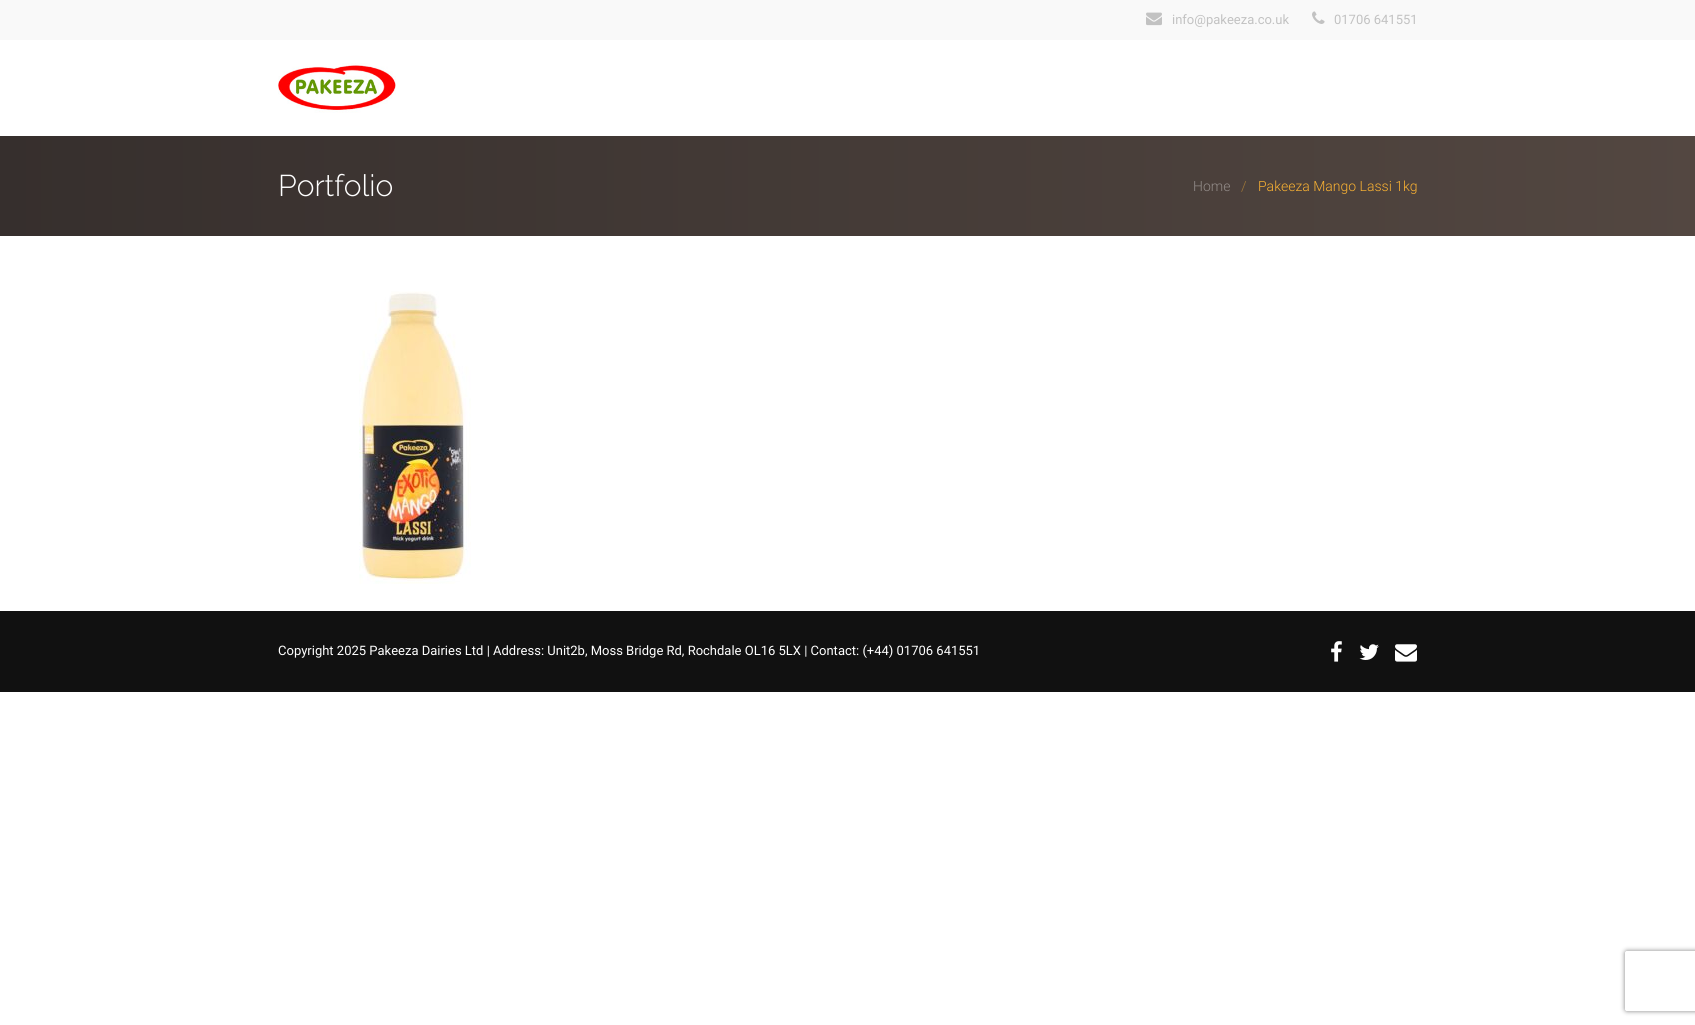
#include <cairo.h>
#include <math.h>
#include <stddef.h>


static void round_rect(cairo_t *cr, double x, double y, double w, double h, double r) {
    cairo_new_sub_path(cr);
    cairo_arc(cr, x + w - r, y + h - r, r, 0, M_PI / 2);
    cairo_arc(cr, x + r, y + h - r, r, M_PI / 2, M_PI);
    cairo_arc(cr, x + r, y + r, r, M_PI, 1.5 * M_PI);
    cairo_arc(cr, x + w - r, y + r, r, 1.5 * M_PI, 2 * M_PI);
    cairo_close_path(cr);
}

static void shadow(cairo_t *cr, double x, double y, double w, double h, double r, double blur, double alpha) {
    cairo_push_group_with_content(cr, CAIRO_CONTENT_ALPHA);
    cairo_set_operator(cr, CAIRO_OPERATOR_SOURCE);
    for (int i = 15; i >= -15 && fmin(w, h) + blur * i / 3 > 0; i -= 2) {
        double e = blur * i / 6;
        cairo_set_source_rgba(cr, 0, 0, 0, alpha * erfc((i - 1) / 8.5) / 2);
        round_rect(cr, x - e, y - e, w + 2 * e, h + 2 * e, fmax(0, fmin(r + e + blur * .6, fmin(w, h) / 2 + e)));
        cairo_fill(cr);
    }
    cairo_pattern_t *soft = cairo_pop_group(cr);
    cairo_mask(cr, soft);
    cairo_pattern_destroy(soft);
}

static void picture(cairo_t *cr, const char *path, double x, double y, double w, double h) {
    cairo_surface_t *image = cairo_image_surface_create_from_png(path);
    cairo_save(cr);
    cairo_set_source_surface(cr, image, x, y);
    cairo_rectangle(cr, x, y, w, h);
    cairo_fill(cr);
    cairo_restore(cr);
    cairo_surface_destroy(image);
}

int main(void) {
    cairo_surface_t *surface = cairo_image_surface_create(CAIRO_FORMAT_RGB24, 1695, 1025);
    cairo_t *cr = cairo_create(surface);
    cairo_font_options_t *options = cairo_font_options_create();
    cairo_font_options_set_hint_metrics(options, CAIRO_HINT_METRICS_OFF);
    cairo_font_options_set_hint_style(options, CAIRO_HINT_STYLE_NONE);
    cairo_set_font_options(cr, options);
    cairo_set_miter_limit(cr, 4);
    cairo_pattern_t *gradient;
    cairo_set_source_rgb(cr, 1, 1, 1);
    cairo_paint(cr);
    cairo_set_source_rgb(cr, 0.976, 0.976, 0.976);
    cairo_rectangle(cr, 0, 0, 1695, 40);
    cairo_fill(cr);
    picture(cr, "img1.png", 1146, 12, 16, 14);
    cairo_select_font_face(cr, "Roboto", CAIRO_FONT_SLANT_NORMAL, CAIRO_FONT_WEIGHT_NORMAL);
    cairo_set_font_size(cr, 13);
    cairo_set_source_rgb(cr, 0.761, 0.761, 0.761);
    cairo_move_to(cr, 1172, 24);
    cairo_show_text(cr, "info@pakeeza.co.uk");
    picture(cr, "img2.png", 1312, 11, 13, 13);
    cairo_move_to(cr, 1334, 24);
    cairo_show_text(cr, "01706 641551");
    picture(cr, "img3.png", 278, 63, 118, 50);
    gradient = cairo_pattern_create_linear(0, 171, 1695, 171);
    cairo_pattern_add_color_stop_rgba(gradient, 0, 0.212, 0.184, 0.176, 1);
    cairo_pattern_add_color_stop_rgba(gradient, 1, 0.325, 0.278, 0.255, 1);
    cairo_set_source(cr, gradient);
    cairo_pattern_destroy(gradient);
    cairo_rectangle(cr, 0, 136, 1695, 100);
    cairo_fill(cr);
    cairo_select_font_face(cr, "Raleway Light", CAIRO_FONT_SLANT_NORMAL, CAIRO_FONT_WEIGHT_NORMAL);
    cairo_set_font_size(cr, 30);
    cairo_set_source_rgb(cr, 1, 1, 1);
    cairo_move_to(cr, 278, 196);
    cairo_show_text(cr, "Portfolio");
    cairo_select_font_face(cr, "Roboto Light", CAIRO_FONT_SLANT_NORMAL, CAIRO_FONT_WEIGHT_NORMAL);
    cairo_set_font_size(cr, 14);
    cairo_set_source_rgb(cr, 0.576, 0.549, 0.537);
    cairo_move_to(cr, 1193, 191);
    cairo_show_text(cr, "Home");
    cairo_set_source_rgb(cr, 0.635, 0.475, 0.216);
    cairo_move_to(cr, 1241, 191);
    cairo_show_text(cr, "/");
    cairo_set_source_rgb(cr, 0.973, 0.694, 0.196);
    cairo_move_to(cr, 1258, 191);
    cairo_show_text(cr, "Pakeeza Mango Lassi 1kg");
    picture(cr, "img4.png", 359, 291, 112, 293);
    cairo_set_source_rgb(cr, 0.067, 0.067, 0.067);
    cairo_rectangle(cr, 0, 611, 1695, 81);
    cairo_fill(cr);
    cairo_select_font_face(cr, "Roboto", CAIRO_FONT_SLANT_NORMAL, CAIRO_FONT_WEIGHT_NORMAL);
    cairo_set_font_size(cr, 13);
    cairo_set_source_rgb(cr, 1, 1, 1);
    cairo_move_to(cr, 278, 655);
    cairo_show_text(cr, "Copyright 2025 Pakeeza Dairies Ltd | Address: Unit2b, Moss Bridge Rd, Rochdale OL16 5LX | Contact: (+44) 01706 641551");
    picture(cr, "img5.png", 1331, 641, 11, 21);
    picture(cr, "img6.png", 1359, 644, 20, 16);
    picture(cr, "img7.png", 1395, 644, 22, 18);
    cairo_save(cr);
    cairo_set_fill_rule(cr, CAIRO_FILL_RULE_EVEN_ODD);
    cairo_new_path(cr);
    cairo_move_to(cr, 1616, 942);
    cairo_line_to(cr, 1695, 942);
    cairo_line_to(cr, 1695, 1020);
    cairo_line_to(cr, 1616, 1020);
    cairo_close_path(cr);
    cairo_move_to(cr, 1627, 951);
    cairo_line_to(cr, 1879, 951);
    cairo_curve_to(cr, 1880, 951, 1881, 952, 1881, 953);
    cairo_line_to(cr, 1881, 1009);
    cairo_curve_to(cr, 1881, 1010, 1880, 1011, 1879, 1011);
    cairo_line_to(cr, 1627, 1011);
    cairo_curve_to(cr, 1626, 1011, 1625, 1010, 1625, 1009);
    cairo_line_to(cr, 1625, 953);
    cairo_curve_to(cr, 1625, 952, 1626, 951, 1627, 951);
    cairo_close_path(cr);
    cairo_clip(cr);
    cairo_set_source_rgb(cr, 0.502, 0.502, 0.502);
    shadow(cr, 1625, 951, 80, 60, 2, 2.5, 1);
    cairo_restore(cr);
    cairo_surface_write_to_png(surface, "page.png");
    cairo_font_options_destroy(options);
    cairo_destroy(cr);
    cairo_surface_destroy(surface);
    return 0;
}
